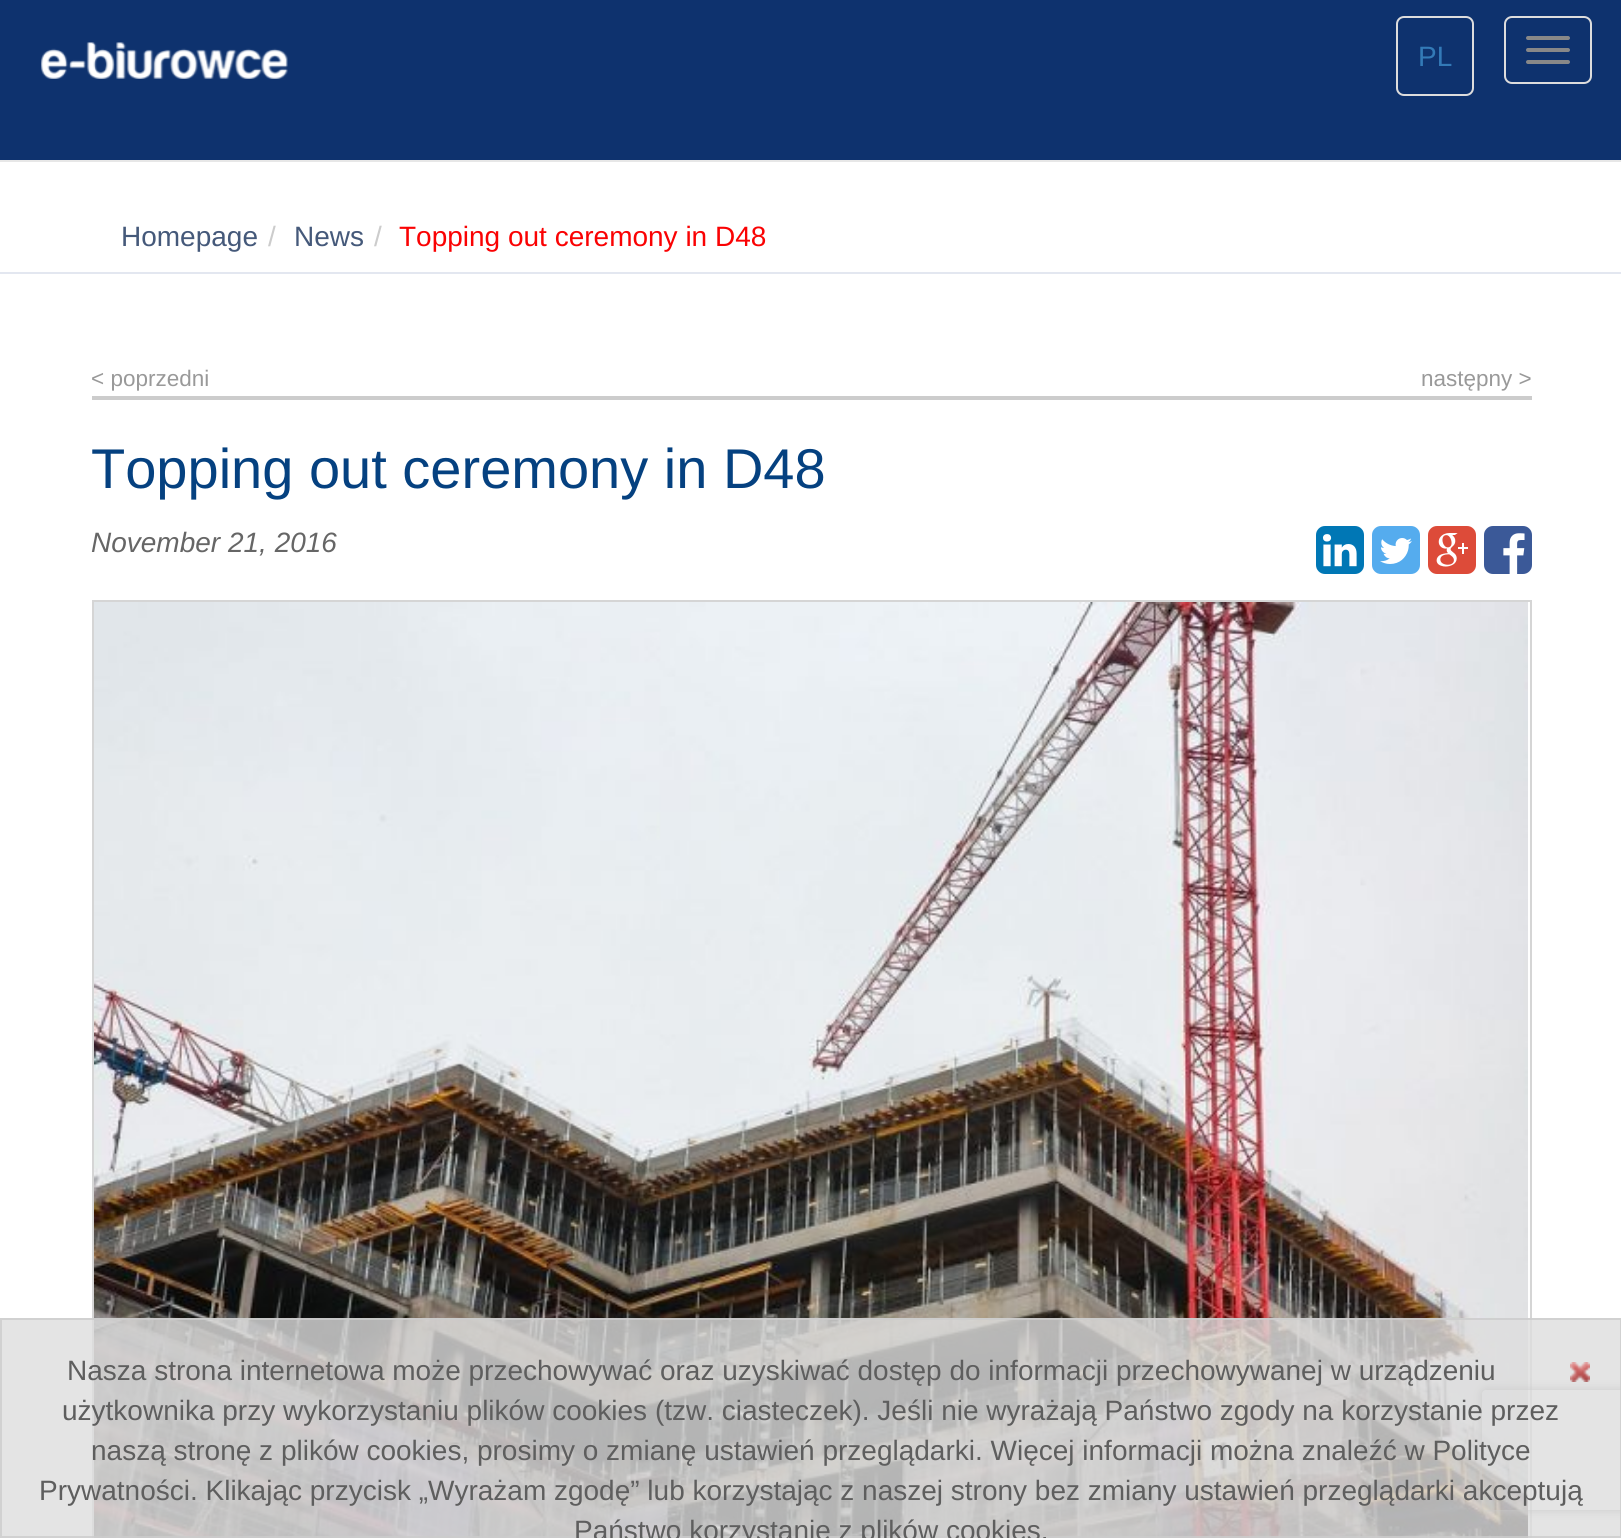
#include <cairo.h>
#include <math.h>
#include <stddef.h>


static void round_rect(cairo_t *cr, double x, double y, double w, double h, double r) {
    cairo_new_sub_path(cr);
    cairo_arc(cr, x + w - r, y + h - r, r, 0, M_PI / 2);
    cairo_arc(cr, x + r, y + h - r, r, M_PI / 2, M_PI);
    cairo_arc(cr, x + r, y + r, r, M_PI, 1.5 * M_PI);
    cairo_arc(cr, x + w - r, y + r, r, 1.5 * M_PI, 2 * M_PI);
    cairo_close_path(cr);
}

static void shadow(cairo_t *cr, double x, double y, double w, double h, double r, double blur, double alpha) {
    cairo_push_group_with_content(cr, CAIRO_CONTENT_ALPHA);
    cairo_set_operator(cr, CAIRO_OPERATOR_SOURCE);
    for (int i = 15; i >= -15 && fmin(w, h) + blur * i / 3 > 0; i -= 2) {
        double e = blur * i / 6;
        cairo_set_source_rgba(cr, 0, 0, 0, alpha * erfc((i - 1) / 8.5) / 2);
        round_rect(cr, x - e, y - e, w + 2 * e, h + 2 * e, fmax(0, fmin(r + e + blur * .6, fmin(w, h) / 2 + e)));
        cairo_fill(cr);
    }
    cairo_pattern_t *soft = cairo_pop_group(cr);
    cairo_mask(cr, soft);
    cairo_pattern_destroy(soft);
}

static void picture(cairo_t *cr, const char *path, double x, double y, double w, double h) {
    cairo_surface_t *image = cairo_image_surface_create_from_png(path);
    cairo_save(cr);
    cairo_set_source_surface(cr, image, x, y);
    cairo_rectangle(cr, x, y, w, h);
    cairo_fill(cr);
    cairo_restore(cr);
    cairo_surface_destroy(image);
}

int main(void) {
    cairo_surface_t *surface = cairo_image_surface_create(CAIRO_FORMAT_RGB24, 1621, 1538);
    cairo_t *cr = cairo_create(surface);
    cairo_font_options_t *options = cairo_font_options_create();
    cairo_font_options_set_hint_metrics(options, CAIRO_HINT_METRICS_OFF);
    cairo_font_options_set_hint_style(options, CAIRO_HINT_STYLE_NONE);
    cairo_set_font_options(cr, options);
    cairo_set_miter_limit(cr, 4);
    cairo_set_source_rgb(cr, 1, 1, 1);
    cairo_paint(cr);
    cairo_set_source_rgb(cr, 0.055, 0.196, 0.431);
    cairo_rectangle(cr, 0, 0, 1621, 160);
    cairo_fill(cr);
    cairo_set_source_rgb(cr, 0.906, 0.906, 0.906);
    cairo_rectangle(cr, 0, 160, 1621, 2);
    cairo_fill(cr);
    picture(cr, "img1.png", 41, 42, 247, 37);
    round_rect(cr, 1397, 17, 76, 78, 7);
    cairo_set_source_rgb(cr, 0.867, 0.867, 0.867);
    cairo_stroke(cr);
    cairo_select_font_face(cr, "Liberation Sans", CAIRO_FONT_SLANT_NORMAL, CAIRO_FONT_WEIGHT_NORMAL);
    cairo_set_font_size(cr, 28);
    cairo_set_source_rgb(cr, 0.2, 0.478, 0.718);
    cairo_move_to(cr, 1418, 66);
    cairo_show_text(cr, "PL");
    round_rect(cr, 1505, 17, 86, 66, 7);
    cairo_set_source_rgb(cr, 0.867, 0.867, 0.867);
    cairo_stroke(cr);
    cairo_set_source_rgb(cr, 0.533, 0.533, 0.533);
    round_rect(cr, 1526, 36, 44, 4, 2);
    cairo_fill(cr);
    round_rect(cr, 1526, 48, 44, 4, 2);
    cairo_fill(cr);
    round_rect(cr, 1526, 60, 44, 4, 2);
    cairo_fill(cr);
    cairo_set_source_rgb(cr, 0.89, 0.906, 0.941);
    cairo_rectangle(cr, 0, 272, 1621, 2);
    cairo_fill(cr);
    cairo_set_source_rgb(cr, 0.271, 0.349, 0.478);
    cairo_move_to(cr, 121, 246);
    cairo_show_text(cr, "Homepage");
    cairo_set_source_rgb(cr, 0.8, 0.8, 0.8);
    cairo_move_to(cr, 268, 246);
    cairo_show_text(cr, "/");
    cairo_set_source_rgb(cr, 0.271, 0.349, 0.478);
    cairo_move_to(cr, 294, 246);
    cairo_show_text(cr, "News");
    cairo_set_source_rgb(cr, 0.8, 0.8, 0.8);
    cairo_move_to(cr, 374, 246);
    cairo_show_text(cr, "/");
    cairo_set_source_rgb(cr, 0.98, 0.008, 0.012);
    cairo_move_to(cr, 399, 246);
    cairo_show_text(cr, "Topping out ceremony in D48");
    cairo_set_source_rgb(cr, 0.8, 0.8, 0.8);
    cairo_rectangle(cr, 92, 396, 1440, 4);
    cairo_fill(cr);
    cairo_set_font_size(cr, 22.5);
    cairo_set_source_rgb(cr, 0.6, 0.6, 0.6);
    cairo_move_to(cr, 91, 386);
    cairo_show_text(cr, "< poprzedni");
    cairo_move_to(cr, 1421, 386);
    cairo_show_text(cr, "następny >");
    cairo_set_font_size(cr, 56);
    cairo_set_source_rgb(cr, 0.02, 0.255, 0.502);
    cairo_move_to(cr, 91, 488);
    cairo_show_text(cr, "Topping out ceremony in D48");
    cairo_select_font_face(cr, "Liberation Sans", CAIRO_FONT_SLANT_ITALIC, CAIRO_FONT_WEIGHT_NORMAL);
    cairo_set_font_size(cr, 28);
    cairo_set_source_rgb(cr, 0.4, 0.4, 0.4);
    cairo_move_to(cr, 91, 552);
    cairo_show_text(cr, "November 21, 2016");
    picture(cr, "img2.png", 1316, 526, 48, 48);
    picture(cr, "img3.png", 1372, 526, 48, 48);
    picture(cr, "img4.png", 1428, 526, 48, 48);
    picture(cr, "img5.png", 1484, 526, 48, 48);
    cairo_rectangle(cr, 93, 601, 1438, 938);
    cairo_set_source_rgb(cr, 0.835, 0.835, 0.835);
    cairo_stroke(cr);
    picture(cr, "img6.png", 94, 602, 1434, 936);
    cairo_save(cr);
    cairo_set_fill_rule(cr, CAIRO_FILL_RULE_EVEN_ODD);
    cairo_new_path(cr);
    cairo_move_to(cr, 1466, 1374);
    cairo_line_to(cr, 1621, 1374);
    cairo_line_to(cr, 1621, 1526);
    cairo_line_to(cr, 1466, 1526);
    cairo_close_path(cr);
    cairo_move_to(cr, 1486, 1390);
    cairo_line_to(cr, 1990, 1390);
    cairo_curve_to(cr, 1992, 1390, 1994, 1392, 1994, 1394);
    cairo_line_to(cr, 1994, 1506);
    cairo_curve_to(cr, 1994, 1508, 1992, 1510, 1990, 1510);
    cairo_line_to(cr, 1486, 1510);
    cairo_curve_to(cr, 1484, 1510, 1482, 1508, 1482, 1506);
    cairo_line_to(cr, 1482, 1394);
    cairo_curve_to(cr, 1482, 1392, 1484, 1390, 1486, 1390);
    cairo_close_path(cr);
    cairo_clip(cr);
    cairo_set_source_rgb(cr, 0.502, 0.502, 0.502);
    shadow(cr, 1482, 1390, 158, 120, 4, 5, 1);
    cairo_restore(cr);
    cairo_set_source_rgba(cr, 0.867, 0.867, 0.867, 0.8);
    cairo_rectangle(cr, 0, 1318, 1621, 220);
    cairo_fill(cr);
    cairo_rectangle(cr, 1, 1319, 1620, 218);
    cairo_set_source_rgba(cr, 0.8, 0.8, 0.8, 0.8);
    cairo_stroke(cr);
    cairo_select_font_face(cr, "Liberation Sans", CAIRO_FONT_SLANT_NORMAL, CAIRO_FONT_WEIGHT_NORMAL);
    cairo_set_source_rgb(cr, 0.369, 0.369, 0.369);
    cairo_move_to(cr, 67, 1380);
    cairo_show_text(cr, "Nasza strona internetowa może przechowywać oraz uzyskiwać dostęp do informacji przechowywanej w urządzeniu");
    picture(cr, "img7.png", 1570, 1362, 20, 20);
    cairo_move_to(cr, 62, 1420);
    cairo_show_text(cr, "użytkownika przy wykorzystaniu plików cookies (tzw. ciasteczek). Jeśli nie wyrażają Państwo zgody na korzystanie przez");
    cairo_move_to(cr, 91, 1460);
    cairo_show_text(cr, "naszą stronę z plików cookies, prosimy o zmianę ustawień przeglądarki. Więcej informacji można znaleźć w Polityce");
    cairo_move_to(cr, 39, 1500);
    cairo_show_text(cr, "Prywatności. Klikając przycisk „Wyrażam zgodę” lub korzystając z naszej strony bez zmiany ustawień przeglądarki akceptują");
    cairo_move_to(cr, 574, 1540);
    cairo_show_text(cr, "Państwo korzystanie z plików cookies.");
    cairo_surface_write_to_png(surface, "page.png");
    cairo_font_options_destroy(options);
    cairo_destroy(cr);
    cairo_surface_destroy(surface);
    return 0;
}
